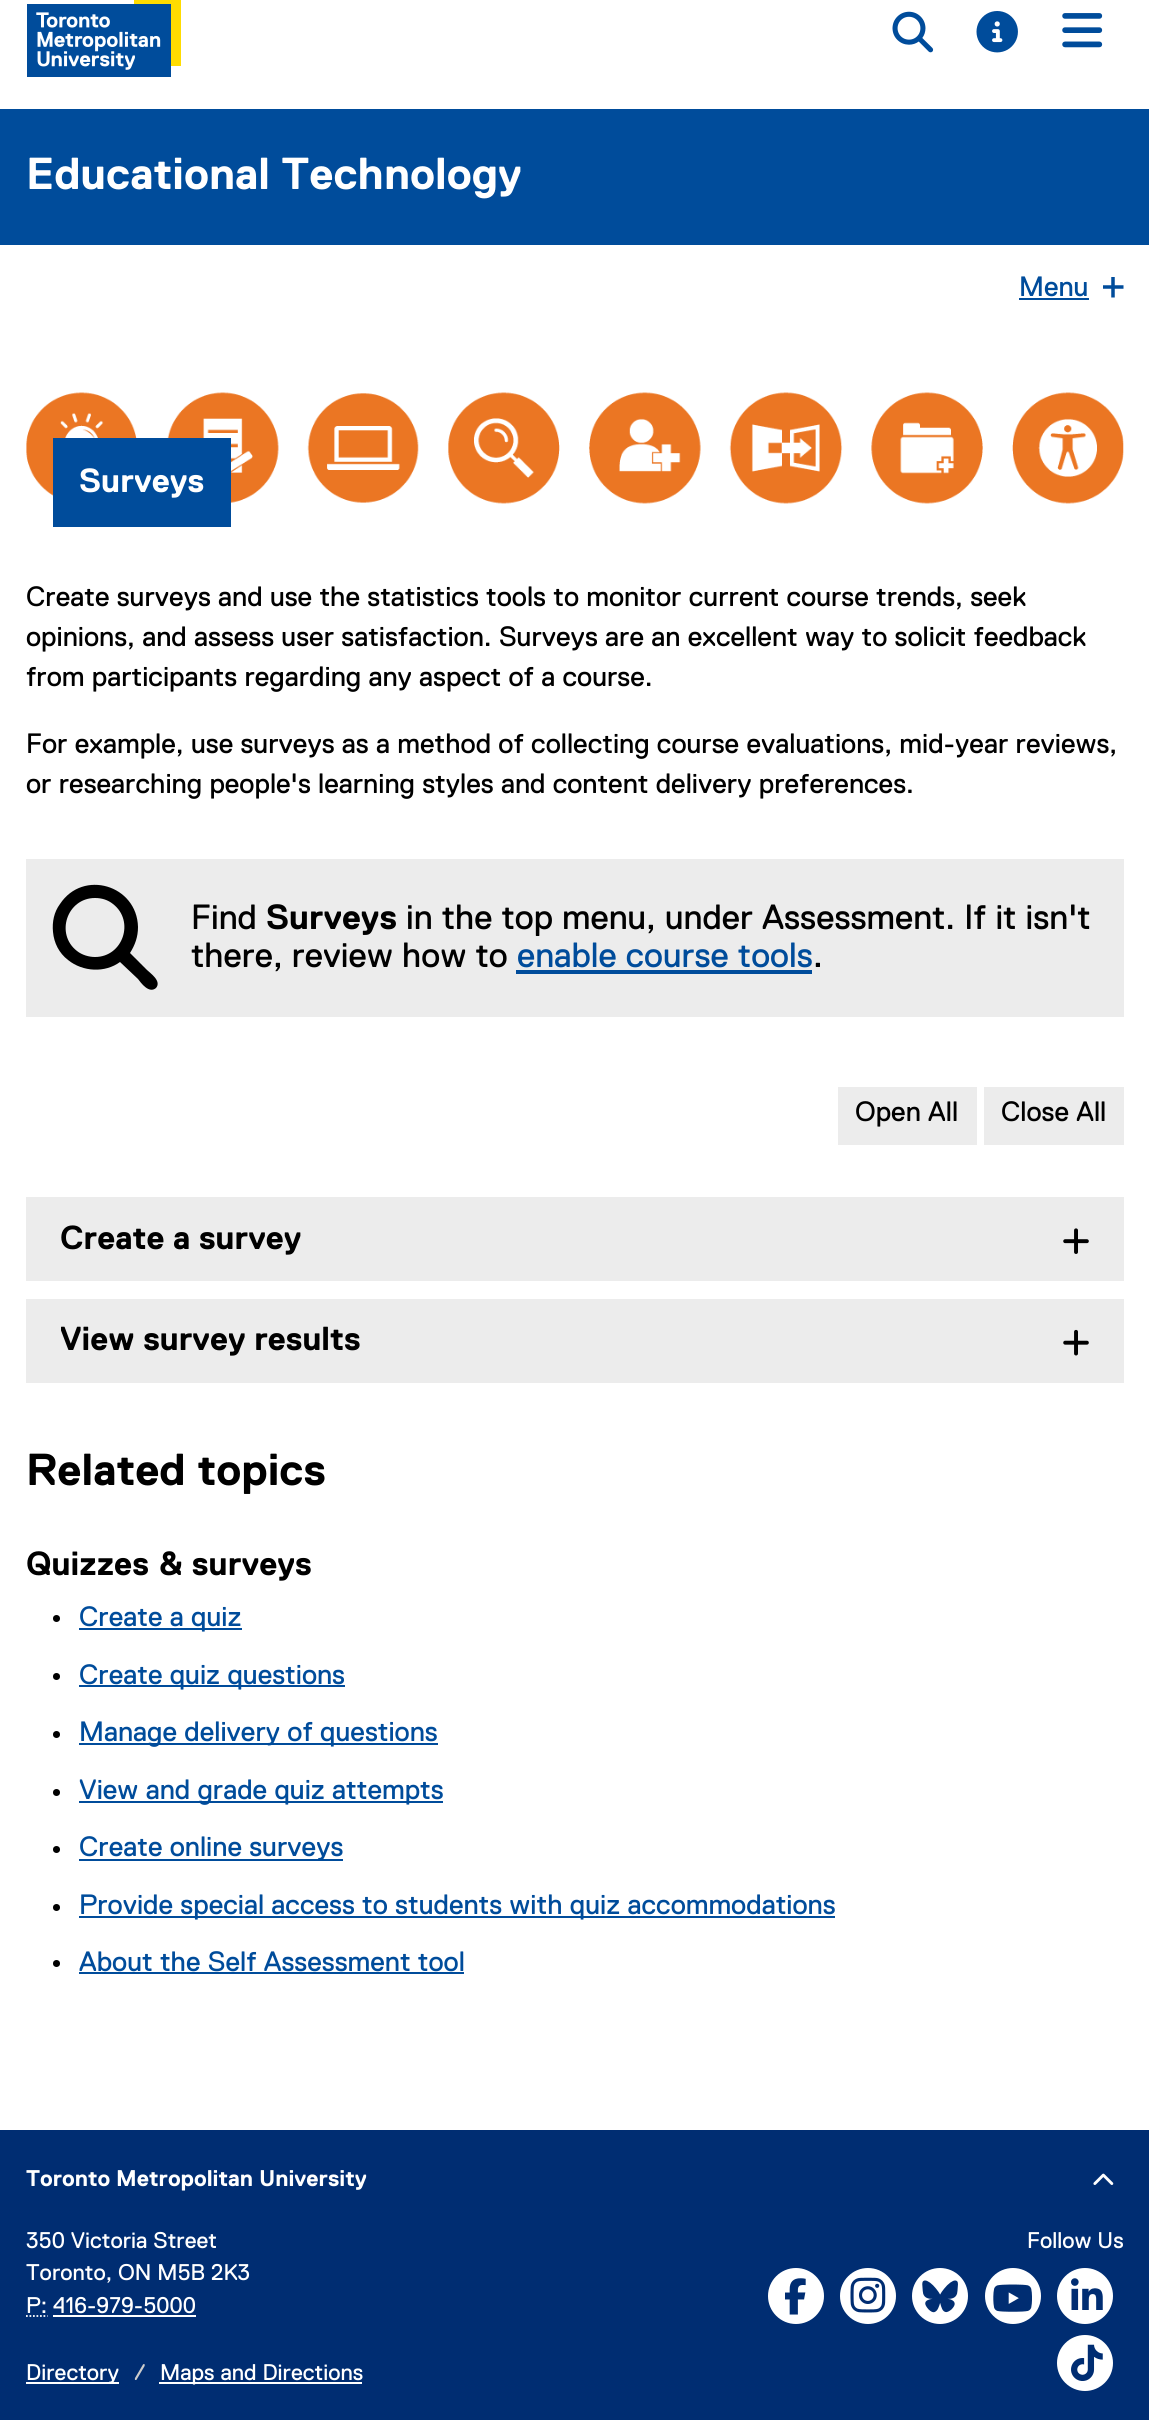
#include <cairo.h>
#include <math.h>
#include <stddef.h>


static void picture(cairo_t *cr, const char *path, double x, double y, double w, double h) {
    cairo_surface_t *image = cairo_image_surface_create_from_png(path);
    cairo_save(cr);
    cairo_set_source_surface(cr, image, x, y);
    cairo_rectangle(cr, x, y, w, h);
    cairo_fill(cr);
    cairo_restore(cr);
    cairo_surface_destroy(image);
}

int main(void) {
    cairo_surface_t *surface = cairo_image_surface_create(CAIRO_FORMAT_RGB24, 1149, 2420);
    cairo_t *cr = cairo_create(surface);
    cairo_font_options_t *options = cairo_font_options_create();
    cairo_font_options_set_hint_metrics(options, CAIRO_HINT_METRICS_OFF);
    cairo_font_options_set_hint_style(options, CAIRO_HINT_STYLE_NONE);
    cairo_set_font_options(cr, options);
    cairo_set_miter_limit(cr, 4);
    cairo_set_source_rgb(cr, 1, 1, 1);
    cairo_paint(cr);
    picture(cr, "img1.png", 27, 0, 154, 77);
    picture(cr, "img2.png", 892, 11, 42, 42);
    picture(cr, "img3.png", 976, 11, 42, 42);
    picture(cr, "img4.png", 1062, 13, 41, 35);
    cairo_set_source_rgb(cr, 0, 0.298, 0.608);
    cairo_rectangle(cr, 0, 109, 1149, 136);
    cairo_fill(cr);
    cairo_select_font_face(cr, "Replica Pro", CAIRO_FONT_SLANT_NORMAL, CAIRO_FONT_WEIGHT_BOLD);
    cairo_set_font_size(cr, 44.75);
    cairo_set_source_rgb(cr, 1, 1, 1);
    cairo_move_to(cr, 26, 189);
    cairo_show_text(cr, "Educational Technology");
    cairo_select_font_face(cr, "Replica Pro", CAIRO_FONT_SLANT_NORMAL, CAIRO_FONT_WEIGHT_NORMAL);
    cairo_set_font_size(cr, 28);
    cairo_set_source_rgb(cr, 0, 0.298, 0.608);
    cairo_move_to(cr, 1019, 296);
    cairo_show_text(cr, "Menu");
    cairo_rectangle(cr, 1019, 298, 70, 2);
    cairo_fill(cr);
    picture(cr, "img5.png", 1103, 277, 21, 21);
    picture(cr, "img6.png", 26, 392, 1098, 112);
    cairo_rectangle(cr, 53, 438, 178, 89);
    cairo_fill(cr);
    cairo_select_font_face(cr, "Replica Pro", CAIRO_FONT_SLANT_NORMAL, CAIRO_FONT_WEIGHT_BOLD);
    cairo_set_font_size(cr, 33.5);
    cairo_set_source_rgb(cr, 1, 1, 1);
    cairo_move_to(cr, 79, 492);
    cairo_show_text(cr, "Surveys");
    cairo_select_font_face(cr, "Replica Pro", CAIRO_FONT_SLANT_NORMAL, CAIRO_FONT_WEIGHT_NORMAL);
    cairo_set_font_size(cr, 28);
    cairo_set_source_rgb(cr, 0, 0, 0);
    cairo_move_to(cr, 26, 606);
    cairo_show_text(cr, "Create surveys and use the statistics tools to monitor current course trends, seek");
    cairo_move_to(cr, 26, 646);
    cairo_show_text(cr, "opinions, and assess user satisfaction. Surveys are an excellent way to solicit feedback");
    cairo_move_to(cr, 26, 686);
    cairo_show_text(cr, "from participants regarding any aspect of a course.");
    cairo_move_to(cr, 26, 753);
    cairo_show_text(cr, "For example, use surveys as a method of collecting course evaluations, mid-year reviews,");
    cairo_move_to(cr, 26, 793);
    cairo_show_text(cr, "or researching people's learning styles and content delivery preferences.");
    cairo_set_source_rgb(cr, 0.922, 0.922, 0.922);
    cairo_rectangle(cr, 26, 859, 1098, 158);
    cairo_fill(cr);
    cairo_set_source_rgb(cr, 0, 0, 0);
    cairo_new_path(cr);
    cairo_move_to(cr, 138, 927);
    cairo_curve_to(cr, 138, 937, 135, 945, 130, 953);
    cairo_line_to(cr, 147, 970);
    cairo_curve_to(cr, 150, 973, 162, 981, 156, 988);
    cairo_curve_to(cr, 149, 994, 141, 983, 138, 979);
    cairo_line_to(cr, 120, 962);
    cairo_curve_to(cr, 105, 973, 83, 972, 68, 960);
    cairo_curve_to(cr, 59, 953, 54, 943, 53, 932);
    cairo_curve_to(cr, 52, 922, 54, 912, 60, 904);
    cairo_curve_to(cr, 83, 869, 137, 885, 138, 927);
    cairo_close_path(cr);
    cairo_move_to(cr, 95, 957);
    cairo_curve_to(cr, 123, 957, 135, 921, 113, 904);
    cairo_curve_to(cr, 108, 900, 102, 898, 95, 898);
    cairo_curve_to(cr, 67, 898, 55, 934, 77, 951);
    cairo_curve_to(cr, 82, 955, 89, 957, 95, 957);
    cairo_close_path(cr);
    cairo_fill(cr);
    cairo_set_font_size(cr, 35);
    cairo_move_to(cr, 191, 929);
    cairo_show_text(cr, "Find");
    cairo_select_font_face(cr, "Replica Pro", CAIRO_FONT_SLANT_NORMAL, CAIRO_FONT_WEIGHT_BOLD);
    cairo_move_to(cr, 266, 929);
    cairo_show_text(cr, "Surveys");
    cairo_select_font_face(cr, "Replica Pro", CAIRO_FONT_SLANT_NORMAL, CAIRO_FONT_WEIGHT_NORMAL);
    cairo_move_to(cr, 406, 929);
    cairo_show_text(cr, "in the top menu, under Assessment. If it isn't");
    cairo_move_to(cr, 191, 967);
    cairo_show_text(cr, "there, review how to");
    cairo_set_source_rgb(cr, 0, 0.298, 0.608);
    cairo_move_to(cr, 517, 967);
    cairo_show_text(cr, "enable course tools");
    cairo_rectangle(cr, 516, 970, 296, 4);
    cairo_fill(cr);
    cairo_set_source_rgb(cr, 0, 0, 0);
    cairo_move_to(cr, 813, 967);
    cairo_show_text(cr, ".");
    cairo_set_source_rgb(cr, 0.922, 0.922, 0.922);
    cairo_rectangle(cr, 838, 1087, 139, 58);
    cairo_fill(cr);
    cairo_set_font_size(cr, 28);
    cairo_set_source_rgb(cr, 0, 0, 0);
    cairo_move_to(cr, 855, 1121);
    cairo_show_text(cr, "Open All");
    cairo_set_source_rgb(cr, 0.922, 0.922, 0.922);
    cairo_rectangle(cr, 984, 1087, 140, 58);
    cairo_fill(cr);
    cairo_set_source_rgb(cr, 0, 0, 0);
    cairo_move_to(cr, 1001, 1121);
    cairo_show_text(cr, "Close All");
    cairo_set_source_rgb(cr, 0.922, 0.922, 0.922);
    cairo_rectangle(cr, 26, 1197, 1098, 84);
    cairo_fill(cr);
    cairo_select_font_face(cr, "Replica Pro", CAIRO_FONT_SLANT_NORMAL, CAIRO_FONT_WEIGHT_BOLD);
    cairo_set_font_size(cr, 33.25);
    cairo_set_source_rgb(cr, 0, 0, 0);
    cairo_move_to(cr, 60, 1249);
    cairo_show_text(cr, "Create a survey");
    picture(cr, "img7.png", 1063, 1228, 26, 26);
    cairo_set_source_rgb(cr, 0.922, 0.922, 0.922);
    cairo_rectangle(cr, 26, 1299, 1098, 84);
    cairo_fill(cr);
    cairo_set_source_rgb(cr, 0, 0, 0);
    cairo_move_to(cr, 60, 1350);
    cairo_show_text(cr, "View survey results");
    picture(cr, "img8.png", 1063, 1329, 26, 27);
    cairo_set_font_size(cr, 44.75);
    cairo_move_to(cr, 26, 1485);
    cairo_show_text(cr, "Related topics");
    cairo_set_font_size(cr, 33.5);
    cairo_move_to(cr, 26, 1575);
    cairo_show_text(cr, "Quizzes & surveys");
    cairo_new_path(cr);
    cairo_arc(cr, 56.5, 1618.5, 3.5, 0, 2 * M_PI);
    cairo_fill(cr);
    cairo_set_source_rgb(cr, 0, 0.298, 0.608);
    cairo_rectangle(cr, 79, 1628, 163, 2);
    cairo_fill(cr);
    cairo_select_font_face(cr, "Replica Pro", CAIRO_FONT_SLANT_NORMAL, CAIRO_FONT_WEIGHT_NORMAL);
    cairo_set_font_size(cr, 28);
    cairo_move_to(cr, 79, 1626);
    cairo_show_text(cr, "Create a quiz");
    cairo_set_source_rgb(cr, 0, 0, 0);
    cairo_new_path(cr);
    cairo_arc(cr, 56.5, 1676.5, 3.5, 0, 2 * M_PI);
    cairo_fill(cr);
    cairo_set_source_rgb(cr, 0, 0.298, 0.608);
    cairo_rectangle(cr, 79, 1685, 266, 2);
    cairo_fill(cr);
    cairo_move_to(cr, 79, 1684);
    cairo_show_text(cr, "Create quiz questions");
    cairo_set_source_rgb(cr, 0, 0, 0);
    cairo_new_path(cr);
    cairo_arc(cr, 56.5, 1734.5, 3.5, 0, 2 * M_PI);
    cairo_fill(cr);
    cairo_set_source_rgb(cr, 0, 0.298, 0.608);
    cairo_rectangle(cr, 79, 1743, 359, 2);
    cairo_fill(cr);
    cairo_move_to(cr, 79, 1741);
    cairo_show_text(cr, "Manage delivery of questions");
    cairo_set_source_rgb(cr, 0, 0, 0);
    cairo_new_path(cr);
    cairo_arc(cr, 56.5, 1792.5, 3.5, 0, 2 * M_PI);
    cairo_fill(cr);
    cairo_set_source_rgb(cr, 0, 0.298, 0.608);
    cairo_rectangle(cr, 79, 1801, 364, 2);
    cairo_fill(cr);
    cairo_move_to(cr, 79, 1799);
    cairo_show_text(cr, "View and grade quiz attempts");
    cairo_set_source_rgb(cr, 0, 0, 0);
    cairo_new_path(cr);
    cairo_arc(cr, 56.5, 1849.5, 3.5, 0, 2 * M_PI);
    cairo_fill(cr);
    cairo_set_source_rgb(cr, 0, 0.298, 0.608);
    cairo_rectangle(cr, 79, 1859, 264, 2);
    cairo_fill(cr);
    cairo_move_to(cr, 79, 1856);
    cairo_show_text(cr, "Create online surveys");
    cairo_set_source_rgb(cr, 0, 0, 0);
    cairo_new_path(cr);
    cairo_arc(cr, 56.5, 1907.5, 3.5, 0, 2 * M_PI);
    cairo_fill(cr);
    cairo_set_source_rgb(cr, 0, 0.298, 0.608);
    cairo_rectangle(cr, 79, 1916, 756, 2);
    cairo_fill(cr);
    cairo_move_to(cr, 79, 1914);
    cairo_show_text(cr, "Provide special access to students with quiz accommodations");
    cairo_set_source_rgb(cr, 0, 0, 0);
    cairo_new_path(cr);
    cairo_arc(cr, 56.5, 1963.5, 3.5, 0, 2 * M_PI);
    cairo_fill(cr);
    cairo_set_source_rgb(cr, 0, 0.298, 0.608);
    cairo_move_to(cr, 79, 1971);
    cairo_show_text(cr, "About the Self Assessment tool");
    cairo_rectangle(cr, 79, 1972, 385, 2);
    cairo_fill(cr);
    cairo_set_source_rgb(cr, 0, 0.176, 0.447);
    cairo_rectangle(cr, 0, 2130, 1149, 290);
    cairo_fill(cr);
    cairo_select_font_face(cr, "Replica Pro", CAIRO_FONT_SLANT_NORMAL, CAIRO_FONT_WEIGHT_BOLD);
    cairo_set_font_size(cr, 22.7);
    cairo_set_source_rgb(cr, 1, 1, 1);
    cairo_move_to(cr, 26, 2186);
    cairo_show_text(cr, "Toronto Metropolitan University");
    picture(cr, "img9.png", 1093, 2173, 21, 12);
    cairo_select_font_face(cr, "Replica Pro", CAIRO_FONT_SLANT_NORMAL, CAIRO_FONT_WEIGHT_NORMAL);
    cairo_move_to(cr, 26, 2248);
    cairo_show_text(cr, "350 Victoria Street");
    cairo_move_to(cr, 26, 2280);
    cairo_show_text(cr, "Toronto, ON M5B 2K3");
    cairo_move_to(cr, 26, 2313);
    cairo_show_text(cr, "P: 416-979-5000");
    cairo_new_path(cr);
    cairo_move_to(cr, 26, 2316);
    cairo_line_to(cr, 47.5, 2316);
    cairo_set_line_width(cr, 1.8);
    cairo_set_dash(cr, (double[]){1.75, 1.75}, 2, 0);
    cairo_stroke(cr);
    cairo_rectangle(cr, 53, 2315, 143, 2);
    cairo_fill(cr);
    cairo_rectangle(cr, 26, 2382, 93, 2);
    cairo_fill(cr);
    cairo_move_to(cr, 26, 2380);
    cairo_show_text(cr, "Directory");
    cairo_set_source_rgb(cr, 0.8, 0.8, 0.8);
    cairo_move_to(cr, 134, 2380);
    cairo_show_text(cr, "/");
    cairo_set_source_rgb(cr, 1, 1, 1);
    cairo_rectangle(cr, 159, 2382, 203, 2);
    cairo_fill(cr);
    cairo_move_to(cr, 160, 2380);
    cairo_show_text(cr, "Maps and Directions");
    cairo_move_to(cr, 1027, 2248);
    cairo_show_text(cr, "Follow Us");
    cairo_new_path(cr);
    cairo_arc(cr, 796, 2296, 28, 0, 2 * M_PI);
    cairo_fill(cr);
    picture(cr, "img10.png", 785, 2278, 21, 37);
    cairo_arc(cr, 868, 2296, 28, 0, 2 * M_PI);
    cairo_fill(cr);
    picture(cr, "img11.png", 850, 2277, 36, 36);
    cairo_arc(cr, 940, 2296, 28, 0, 2 * M_PI);
    cairo_fill(cr);
    picture(cr, "img12.png", 922, 2280, 36, 33);
    cairo_arc(cr, 1013, 2296, 28, 0, 2 * M_PI);
    cairo_fill(cr);
    picture(cr, "img13.png", 993, 2284, 39, 28);
    cairo_arc(cr, 1085, 2296, 28, 0, 2 * M_PI);
    cairo_fill(cr);
    picture(cr, "img14.png", 1071, 2278, 32, 32);
    cairo_arc(cr, 1085, 2363, 28, 0, 2 * M_PI);
    cairo_fill(cr);
    picture(cr, "img15.png", 1071, 2344, 32, 37);
    cairo_surface_write_to_png(surface, "page.png");
    cairo_font_options_destroy(options);
    cairo_destroy(cr);
    cairo_surface_destroy(surface);
    return 0;
}
